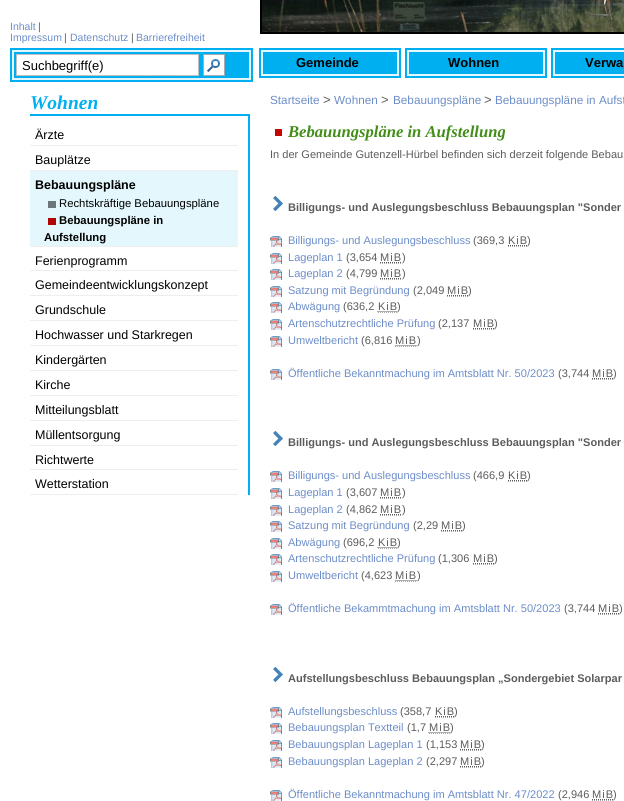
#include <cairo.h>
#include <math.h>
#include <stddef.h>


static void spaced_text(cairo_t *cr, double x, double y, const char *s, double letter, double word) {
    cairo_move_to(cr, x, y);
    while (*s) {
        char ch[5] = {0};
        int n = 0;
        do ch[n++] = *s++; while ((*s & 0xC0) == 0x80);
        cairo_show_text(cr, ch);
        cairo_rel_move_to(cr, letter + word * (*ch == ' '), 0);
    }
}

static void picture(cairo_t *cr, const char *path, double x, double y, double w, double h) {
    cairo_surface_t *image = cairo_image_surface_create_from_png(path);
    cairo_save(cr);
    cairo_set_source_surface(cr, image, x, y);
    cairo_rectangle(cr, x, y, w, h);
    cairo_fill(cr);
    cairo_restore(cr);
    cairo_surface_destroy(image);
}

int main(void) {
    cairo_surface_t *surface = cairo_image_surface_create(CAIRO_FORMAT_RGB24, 624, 801);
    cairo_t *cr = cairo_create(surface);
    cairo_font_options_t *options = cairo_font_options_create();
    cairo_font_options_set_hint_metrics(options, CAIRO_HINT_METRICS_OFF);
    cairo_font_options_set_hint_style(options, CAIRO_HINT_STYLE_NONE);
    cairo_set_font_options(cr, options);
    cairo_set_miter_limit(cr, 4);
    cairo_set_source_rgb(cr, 1, 1, 1);
    cairo_paint(cr);
    picture(cr, "img1.png", 260, 0, 364, 34);
    cairo_select_font_face(cr, "Liberation Sans", CAIRO_FONT_SLANT_NORMAL, CAIRO_FONT_WEIGHT_NORMAL);
    cairo_set_font_size(cr, 10.5);
    cairo_set_source_rgb(cr, 0.424, 0.553, 0.788);
    cairo_move_to(cr, 10, 30);
    cairo_show_text(cr, "Inhalt");
    cairo_set_source_rgb(cr, 0.361, 0.361, 0.361);
    cairo_move_to(cr, 38, 30);
    cairo_show_text(cr, "|");
    cairo_set_source_rgb(cr, 0.424, 0.553, 0.788);
    cairo_move_to(cr, 10, 41);
    cairo_show_text(cr, "Impressum");
    cairo_set_source_rgb(cr, 0.361, 0.361, 0.361);
    cairo_move_to(cr, 64, 41);
    cairo_show_text(cr, "|");
    cairo_set_source_rgb(cr, 0.424, 0.553, 0.788);
    cairo_move_to(cr, 70, 41);
    cairo_show_text(cr, "Datenschutz");
    cairo_set_source_rgb(cr, 0.361, 0.361, 0.361);
    cairo_move_to(cr, 131, 41);
    cairo_show_text(cr, "|");
    cairo_set_source_rgb(cr, 0.424, 0.553, 0.788);
    cairo_move_to(cr, 136, 41);
    cairo_show_text(cr, "Barrierefreiheit");
    picture(cr, "img2.png", 10, 48, 243, 34);
    cairo_set_source_rgb(cr, 1, 1, 1);
    cairo_rectangle(cr, 16.5, 54.5, 182, 21);
    cairo_fill_preserve(cr);
    cairo_set_source_rgb(cr, 0.753, 0.753, 0.753);
    cairo_set_line_width(cr, 1);
    cairo_stroke(cr);
    cairo_set_font_size(cr, 13);
    cairo_set_source_rgb(cr, 0, 0, 0);
    cairo_move_to(cr, 22, 70);
    cairo_show_text(cr, "Suchbegriff(e)");
    picture(cr, "img3.png", 203, 54, 22, 22);
    cairo_set_source_rgb(cr, 0, 0.686, 0.937);
    cairo_rectangle(cr, 259, 48, 142, 30);
    cairo_fill(cr);
    cairo_rectangle(cr, 262, 51, 136, 24);
    cairo_set_source_rgb(cr, 0.89, 0.965, 0.992);
    cairo_set_line_width(cr, 2);
    cairo_stroke(cr);
    cairo_select_font_face(cr, "Liberation Sans", CAIRO_FONT_SLANT_NORMAL, CAIRO_FONT_WEIGHT_BOLD);
    cairo_set_source_rgb(cr, 0, 0, 0);
    cairo_move_to(cr, 296, 67);
    cairo_show_text(cr, "Gemeinde");
    cairo_set_source_rgb(cr, 0, 0.686, 0.937);
    cairo_rectangle(cr, 405, 48, 142, 30);
    cairo_fill(cr);
    cairo_rectangle(cr, 408, 51, 136, 24);
    cairo_set_source_rgb(cr, 0.89, 0.965, 0.992);
    cairo_stroke(cr);
    cairo_set_source_rgb(cr, 0, 0, 0);
    cairo_move_to(cr, 448, 67);
    cairo_show_text(cr, "Wohnen");
    cairo_set_source_rgb(cr, 0, 0.686, 0.937);
    cairo_rectangle(cr, 551, 48, 73, 30);
    cairo_fill(cr);
    cairo_rectangle(cr, 554, 51, 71, 24);
    cairo_set_source_rgb(cr, 0.89, 0.965, 0.992);
    cairo_stroke(cr);
    cairo_set_source_rgb(cr, 0, 0, 0);
    cairo_move_to(cr, 585, 67);
    cairo_show_text(cr, "Verwa");
    cairo_set_source_rgb(cr, 0, 0.686, 0.941);
    cairo_rectangle(cr, 30, 114, 220, 2);
    cairo_fill(cr);
    cairo_select_font_face(cr, "Liberation Serif", CAIRO_FONT_SLANT_ITALIC, CAIRO_FONT_WEIGHT_BOLD);
    cairo_set_font_size(cr, 19.5);
    cairo_move_to(cr, 30, 109);
    cairo_show_text(cr, "Wohnen");
    cairo_rectangle(cr, 248, 116, 2, 379);
    cairo_fill(cr);
    cairo_set_source_rgb(cr, 0.933, 0.933, 0.933);
    cairo_rectangle(cr, 30, 145, 208, 1);
    cairo_fill(cr);
    cairo_select_font_face(cr, "Liberation Sans", CAIRO_FONT_SLANT_NORMAL, CAIRO_FONT_WEIGHT_NORMAL);
    cairo_set_font_size(cr, 12.5);
    cairo_set_source_rgb(cr, 0, 0, 0);
    cairo_move_to(cr, 35, 139);
    cairo_show_text(cr, "Ärzte");
    cairo_set_source_rgb(cr, 0.933, 0.933, 0.933);
    cairo_rectangle(cr, 30, 170, 208, 1);
    cairo_fill(cr);
    cairo_set_source_rgb(cr, 0, 0, 0);
    cairo_move_to(cr, 35, 164);
    cairo_show_text(cr, "Bauplätze");
    cairo_set_source_rgb(cr, 0.89, 0.965, 0.992);
    cairo_rectangle(cr, 30, 171, 208, 75);
    cairo_fill(cr);
    cairo_set_source_rgb(cr, 0.933, 0.933, 0.933);
    cairo_rectangle(cr, 30, 246, 208, 1);
    cairo_fill(cr);
    cairo_select_font_face(cr, "Liberation Sans", CAIRO_FONT_SLANT_NORMAL, CAIRO_FONT_WEIGHT_BOLD);
    cairo_set_source_rgb(cr, 0, 0, 0);
    cairo_move_to(cr, 35, 189);
    cairo_show_text(cr, "Bebauungspläne");
    cairo_set_source_rgb(cr, 0.424, 0.459, 0.471);
    cairo_rectangle(cr, 48, 201, 8, 7);
    cairo_fill(cr);
    cairo_select_font_face(cr, "Liberation Sans", CAIRO_FONT_SLANT_NORMAL, CAIRO_FONT_WEIGHT_NORMAL);
    cairo_set_font_size(cr, 11.3);
    cairo_set_source_rgb(cr, 0, 0, 0);
    cairo_move_to(cr, 59, 207);
    cairo_show_text(cr, "Rechtskräftige Bebauungspläne");
    cairo_select_font_face(cr, "Liberation Sans", CAIRO_FONT_SLANT_NORMAL, CAIRO_FONT_WEIGHT_BOLD);
    cairo_move_to(cr, 59, 224);
    cairo_show_text(cr, "Bebauungspläne in");
    cairo_set_source_rgb(cr, 0.694, 0.016, 0.016);
    cairo_rectangle(cr, 48, 218, 8, 7);
    cairo_fill(cr);
    cairo_set_source_rgb(cr, 0, 0, 0);
    cairo_move_to(cr, 44, 241);
    cairo_show_text(cr, "Aufstellung");
    cairo_set_source_rgb(cr, 0.933, 0.933, 0.933);
    cairo_rectangle(cr, 30, 270, 208, 1);
    cairo_fill(cr);
    cairo_select_font_face(cr, "Liberation Sans", CAIRO_FONT_SLANT_NORMAL, CAIRO_FONT_WEIGHT_NORMAL);
    cairo_set_font_size(cr, 12.5);
    cairo_set_source_rgb(cr, 0, 0, 0);
    cairo_move_to(cr, 35, 265);
    cairo_show_text(cr, "Ferienprogramm");
    cairo_set_source_rgb(cr, 0.933, 0.933, 0.933);
    cairo_rectangle(cr, 30, 295, 208, 1);
    cairo_fill(cr);
    cairo_set_source_rgb(cr, 0, 0, 0);
    cairo_move_to(cr, 35, 289);
    cairo_show_text(cr, "Gemeindeentwicklungskonzept");
    cairo_set_source_rgb(cr, 0.933, 0.933, 0.933);
    cairo_rectangle(cr, 30, 320, 208, 1);
    cairo_fill(cr);
    cairo_set_source_rgb(cr, 0, 0, 0);
    cairo_move_to(cr, 35, 314);
    cairo_show_text(cr, "Grundschule");
    cairo_set_source_rgb(cr, 0.933, 0.933, 0.933);
    cairo_rectangle(cr, 30, 345, 208, 1);
    cairo_fill(cr);
    cairo_set_source_rgb(cr, 0, 0, 0);
    cairo_move_to(cr, 35, 339);
    cairo_show_text(cr, "Hochwasser und Starkregen");
    cairo_set_source_rgb(cr, 0.933, 0.933, 0.933);
    cairo_rectangle(cr, 30, 370, 208, 1);
    cairo_fill(cr);
    cairo_set_source_rgb(cr, 0, 0, 0);
    cairo_move_to(cr, 35, 364);
    cairo_show_text(cr, "Kindergärten");
    cairo_set_source_rgb(cr, 0.933, 0.933, 0.933);
    cairo_rectangle(cr, 30, 395, 208, 1);
    cairo_fill(cr);
    cairo_set_source_rgb(cr, 0, 0, 0);
    cairo_move_to(cr, 35, 389);
    cairo_show_text(cr, "Kirche");
    cairo_set_source_rgb(cr, 0.933, 0.933, 0.933);
    cairo_rectangle(cr, 30, 420, 208, 1);
    cairo_fill(cr);
    cairo_set_source_rgb(cr, 0, 0, 0);
    cairo_move_to(cr, 35, 414);
    cairo_show_text(cr, "Mitteilungsblatt");
    cairo_set_source_rgb(cr, 0.933, 0.933, 0.933);
    cairo_rectangle(cr, 30, 445, 208, 1);
    cairo_fill(cr);
    cairo_set_source_rgb(cr, 0, 0, 0);
    cairo_move_to(cr, 35, 439);
    cairo_show_text(cr, "Müllentsorgung");
    cairo_set_source_rgb(cr, 0.933, 0.933, 0.933);
    cairo_rectangle(cr, 30, 469, 208, 1);
    cairo_fill(cr);
    cairo_set_source_rgb(cr, 0, 0, 0);
    cairo_move_to(cr, 35, 464);
    cairo_show_text(cr, "Richtwerte");
    cairo_set_source_rgb(cr, 0.933, 0.933, 0.933);
    cairo_rectangle(cr, 30, 494, 208, 1);
    cairo_fill(cr);
    cairo_set_source_rgb(cr, 0, 0, 0);
    cairo_move_to(cr, 35, 488);
    cairo_show_text(cr, "Wetterstation");
    cairo_set_font_size(cr, 11.75);
    cairo_set_source_rgb(cr, 0.424, 0.553, 0.788);
    cairo_move_to(cr, 270, 104);
    cairo_show_text(cr, "Startseite");
    cairo_set_font_size(cr, 13);
    cairo_set_source_rgb(cr, 0.361, 0.361, 0.361);
    cairo_move_to(cr, 323, 104);
    cairo_show_text(cr, ">");
    cairo_set_font_size(cr, 11.75);
    cairo_set_source_rgb(cr, 0.424, 0.553, 0.788);
    cairo_move_to(cr, 334, 104);
    cairo_show_text(cr, "Wohnen");
    cairo_set_font_size(cr, 13);
    cairo_set_source_rgb(cr, 0.361, 0.361, 0.361);
    cairo_move_to(cr, 381, 104);
    cairo_show_text(cr, ">");
    cairo_set_font_size(cr, 11.75);
    cairo_set_source_rgb(cr, 0.424, 0.553, 0.788);
    cairo_move_to(cr, 393, 104);
    cairo_show_text(cr, "Bebauungspläne");
    cairo_set_font_size(cr, 13);
    cairo_set_source_rgb(cr, 0.361, 0.361, 0.361);
    cairo_move_to(cr, 484, 104);
    cairo_show_text(cr, ">");
    cairo_set_font_size(cr, 11.75);
    cairo_set_source_rgb(cr, 0.424, 0.553, 0.788);
    cairo_move_to(cr, 495, 104);
    cairo_show_text(cr, "Bebauungspläne in Aufst");
    cairo_set_source_rgb(cr, 0.78, 0.016, 0.016);
    cairo_rectangle(cr, 275, 129, 7, 7);
    cairo_fill(cr);
    cairo_select_font_face(cr, "Liberation Serif", CAIRO_FONT_SLANT_ITALIC, CAIRO_FONT_WEIGHT_BOLD);
    cairo_set_font_size(cr, 16.6);
    cairo_set_source_rgb(cr, 0.259, 0.557, 0.098);
    cairo_move_to(cr, 288, 137);
    cairo_show_text(cr, "Bebauungspläne in Aufstellung");
    cairo_select_font_face(cr, "Liberation Sans", CAIRO_FONT_SLANT_NORMAL, CAIRO_FONT_WEIGHT_NORMAL);
    cairo_set_font_size(cr, 11.05);
    cairo_set_source_rgb(cr, 0.361, 0.361, 0.361);
    cairo_move_to(cr, 270, 158);
    cairo_show_text(cr, "In der Gemeinde Gutenzell-Hürbel befinden sich derzeit folgende Bebau");
    picture(cr, "img4.png", 273, 196, 10, 15);
    cairo_select_font_face(cr, "Liberation Sans", CAIRO_FONT_SLANT_NORMAL, CAIRO_FONT_WEIGHT_BOLD);
    cairo_move_to(cr, 288, 211);
    cairo_show_text(cr, "Billigungs- und Auslegungsbeschluss Bebauungsplan \"Sonder");
    picture(cr, "img5.png", 270, 236, 12, 11);
    cairo_select_font_face(cr, "Liberation Sans", CAIRO_FONT_SLANT_NORMAL, CAIRO_FONT_WEIGHT_NORMAL);
    cairo_set_source_rgb(cr, 0.424, 0.553, 0.788);
    cairo_move_to(cr, 288, 244);
    cairo_show_text(cr, "Billigungs- und Auslegungsbeschluss");
    cairo_set_source_rgb(cr, 0.361, 0.361, 0.361);
    cairo_move_to(cr, 473, 244);
    cairo_show_text(cr, "(369,3");
    spaced_text(cr, 508, 244, "KiB", 1, 0);
    cairo_move_to(cr, 527, 244);
    cairo_show_text(cr, ")");
    cairo_new_path(cr);
    cairo_move_to(cr, 508, 246.5);
    cairo_line_to(cr, 527, 246.5);
    cairo_set_source_rgb(cr, 0.667, 0.667, 0.667);
    cairo_set_line_width(cr, 1);
    cairo_set_dash(cr, (double[]){1, 1}, 2, 0);
    cairo_stroke(cr);
    cairo_new_path(cr);
    cairo_move_to(cr, 508, 245.5);
    cairo_line_to(cr, 527.5, 245.5);
    cairo_set_source_rgb(cr, 0.361, 0.361, 0.361);
    cairo_stroke(cr);
    picture(cr, "img5.png", 270, 253, 12, 11);
    cairo_set_source_rgb(cr, 0.424, 0.553, 0.788);
    cairo_move_to(cr, 288, 261);
    cairo_show_text(cr, "Lageplan 1");
    cairo_set_source_rgb(cr, 0.361, 0.361, 0.361);
    cairo_move_to(cr, 346, 261);
    cairo_show_text(cr, "(3,654");
    spaced_text(cr, 380, 261, "MiB", 1, 0);
    cairo_move_to(cr, 402, 261);
    cairo_show_text(cr, ")");
    cairo_new_path(cr);
    cairo_move_to(cr, 380, 263.5);
    cairo_line_to(cr, 402, 263.5);
    cairo_set_source_rgb(cr, 0.667, 0.667, 0.667);
    cairo_stroke(cr);
    cairo_new_path(cr);
    cairo_move_to(cr, 380, 262.5);
    cairo_line_to(cr, 401.5, 262.5);
    cairo_set_source_rgb(cr, 0.361, 0.361, 0.361);
    cairo_stroke(cr);
    picture(cr, "img5.png", 270, 269, 12, 11);
    cairo_set_source_rgb(cr, 0.424, 0.553, 0.788);
    cairo_move_to(cr, 288, 277);
    cairo_show_text(cr, "Lageplan 2");
    cairo_set_source_rgb(cr, 0.361, 0.361, 0.361);
    cairo_move_to(cr, 346, 277);
    cairo_show_text(cr, "(4,799");
    spaced_text(cr, 380, 277, "MiB", 1, 0);
    cairo_move_to(cr, 402, 277);
    cairo_show_text(cr, ")");
    cairo_new_path(cr);
    cairo_move_to(cr, 380, 279.5);
    cairo_line_to(cr, 402, 279.5);
    cairo_set_source_rgb(cr, 0.667, 0.667, 0.667);
    cairo_stroke(cr);
    cairo_new_path(cr);
    cairo_move_to(cr, 380, 278.5);
    cairo_line_to(cr, 401.5, 278.5);
    cairo_set_source_rgb(cr, 0.361, 0.361, 0.361);
    cairo_stroke(cr);
    picture(cr, "img5.png", 270, 286, 12, 11);
    cairo_set_source_rgb(cr, 0.424, 0.553, 0.788);
    cairo_move_to(cr, 288, 294);
    cairo_show_text(cr, "Satzung mit Begründung");
    cairo_set_source_rgb(cr, 0.361, 0.361, 0.361);
    cairo_move_to(cr, 413, 294);
    cairo_show_text(cr, "(2,049");
    spaced_text(cr, 447, 294, "MiB", 1, 0);
    cairo_move_to(cr, 468, 294);
    cairo_show_text(cr, ")");
    cairo_new_path(cr);
    cairo_move_to(cr, 447, 296.5);
    cairo_line_to(cr, 468, 296.5);
    cairo_set_source_rgb(cr, 0.667, 0.667, 0.667);
    cairo_stroke(cr);
    cairo_new_path(cr);
    cairo_move_to(cr, 447, 295.5);
    cairo_line_to(cr, 468.5, 295.5);
    cairo_set_source_rgb(cr, 0.361, 0.361, 0.361);
    cairo_stroke(cr);
    picture(cr, "img5.png", 270, 302, 12, 11);
    cairo_set_source_rgb(cr, 0.424, 0.553, 0.788);
    cairo_move_to(cr, 288, 310);
    cairo_show_text(cr, "Abwägung");
    cairo_set_source_rgb(cr, 0.361, 0.361, 0.361);
    cairo_move_to(cr, 343, 310);
    cairo_show_text(cr, "(636,2");
    spaced_text(cr, 378, 310, "KiB", 1, 0);
    cairo_move_to(cr, 397, 310);
    cairo_show_text(cr, ")");
    cairo_new_path(cr);
    cairo_move_to(cr, 378, 312.5);
    cairo_line_to(cr, 397, 312.5);
    cairo_set_source_rgb(cr, 0.667, 0.667, 0.667);
    cairo_stroke(cr);
    cairo_new_path(cr);
    cairo_move_to(cr, 377.5, 311.5);
    cairo_line_to(cr, 397, 311.5);
    cairo_set_source_rgb(cr, 0.361, 0.361, 0.361);
    cairo_stroke(cr);
    picture(cr, "img5.png", 270, 319, 12, 11);
    cairo_set_source_rgb(cr, 0.424, 0.553, 0.788);
    cairo_move_to(cr, 288, 327);
    cairo_show_text(cr, "Artenschutzrechtliche Prüfung");
    cairo_set_source_rgb(cr, 0.361, 0.361, 0.361);
    cairo_move_to(cr, 438, 327);
    cairo_show_text(cr, "(2,137");
    spaced_text(cr, 473, 327, "MiB", 1, 0);
    cairo_move_to(cr, 494, 327);
    cairo_show_text(cr, ")");
    cairo_new_path(cr);
    cairo_move_to(cr, 473, 329.5);
    cairo_line_to(cr, 494, 329.5);
    cairo_set_source_rgb(cr, 0.667, 0.667, 0.667);
    cairo_stroke(cr);
    cairo_new_path(cr);
    cairo_move_to(cr, 473, 328.5);
    cairo_line_to(cr, 494, 328.5);
    cairo_set_source_rgb(cr, 0.361, 0.361, 0.361);
    cairo_stroke(cr);
    picture(cr, "img5.png", 270, 336, 12, 11);
    cairo_set_source_rgb(cr, 0.424, 0.553, 0.788);
    cairo_move_to(cr, 288, 344);
    cairo_show_text(cr, "Umweltbericht");
    cairo_set_source_rgb(cr, 0.361, 0.361, 0.361);
    cairo_move_to(cr, 361, 344);
    cairo_show_text(cr, "(6,816");
    spaced_text(cr, 395, 344, "MiB", 1, 0);
    cairo_new_path(cr);
    cairo_move_to(cr, 395.5, 345.5);
    cairo_line_to(cr, 417, 345.5);
    cairo_stroke(cr);
    cairo_move_to(cr, 417, 344);
    cairo_show_text(cr, ")");
    cairo_new_path(cr);
    cairo_move_to(cr, 395, 346.5);
    cairo_line_to(cr, 417, 346.5);
    cairo_set_source_rgb(cr, 0.667, 0.667, 0.667);
    cairo_stroke(cr);
    picture(cr, "img5.png", 270, 369, 12, 11);
    cairo_set_source_rgb(cr, 0.424, 0.553, 0.788);
    cairo_move_to(cr, 288, 377);
    cairo_show_text(cr, "Öffentliche Bekanntmachung im Amtsblatt Nr. 50/2023");
    cairo_set_source_rgb(cr, 0.361, 0.361, 0.361);
    cairo_move_to(cr, 558, 377);
    cairo_show_text(cr, "(3,744");
    spaced_text(cr, 592, 377, "MiB", 1, 0);
    cairo_move_to(cr, 613, 377);
    cairo_show_text(cr, ")");
    cairo_new_path(cr);
    cairo_move_to(cr, 592, 379.5);
    cairo_line_to(cr, 613, 379.5);
    cairo_set_source_rgb(cr, 0.667, 0.667, 0.667);
    cairo_stroke(cr);
    cairo_new_path(cr);
    cairo_move_to(cr, 592, 378.5);
    cairo_line_to(cr, 613.5, 378.5);
    cairo_set_source_rgb(cr, 0.361, 0.361, 0.361);
    cairo_stroke(cr);
    picture(cr, "img4.png", 273, 431, 10, 15);
    cairo_select_font_face(cr, "Liberation Sans", CAIRO_FONT_SLANT_NORMAL, CAIRO_FONT_WEIGHT_BOLD);
    cairo_move_to(cr, 288, 446);
    cairo_show_text(cr, "Billigungs- und Auslegungsbeschluss Bebauungsplan \"Sonder");
    picture(cr, "img5.png", 270, 471, 12, 11);
    cairo_select_font_face(cr, "Liberation Sans", CAIRO_FONT_SLANT_NORMAL, CAIRO_FONT_WEIGHT_NORMAL);
    cairo_set_source_rgb(cr, 0.424, 0.553, 0.788);
    cairo_move_to(cr, 288, 479);
    cairo_show_text(cr, "Billigungs- und Auslegungsbeschluss");
    cairo_set_source_rgb(cr, 0.361, 0.361, 0.361);
    cairo_move_to(cr, 473, 479);
    cairo_show_text(cr, "(466,9");
    spaced_text(cr, 508, 479, "KiB", 1, 0);
    cairo_move_to(cr, 527, 479);
    cairo_show_text(cr, ")");
    cairo_new_path(cr);
    cairo_move_to(cr, 508, 481.5);
    cairo_line_to(cr, 527, 481.5);
    cairo_set_source_rgb(cr, 0.667, 0.667, 0.667);
    cairo_stroke(cr);
    cairo_new_path(cr);
    cairo_move_to(cr, 508, 480.5);
    cairo_line_to(cr, 527.5, 480.5);
    cairo_set_source_rgb(cr, 0.361, 0.361, 0.361);
    cairo_stroke(cr);
    picture(cr, "img5.png", 270, 488, 12, 11);
    cairo_set_source_rgb(cr, 0.424, 0.553, 0.788);
    cairo_move_to(cr, 288, 496);
    cairo_show_text(cr, "Lageplan 1");
    cairo_set_source_rgb(cr, 0.361, 0.361, 0.361);
    cairo_move_to(cr, 346, 496);
    cairo_show_text(cr, "(3,607");
    spaced_text(cr, 380, 496, "MiB", 1, 0);
    cairo_move_to(cr, 402, 496);
    cairo_show_text(cr, ")");
    cairo_new_path(cr);
    cairo_move_to(cr, 380, 498.5);
    cairo_line_to(cr, 402, 498.5);
    cairo_set_source_rgb(cr, 0.667, 0.667, 0.667);
    cairo_stroke(cr);
    cairo_new_path(cr);
    cairo_move_to(cr, 380, 497.5);
    cairo_line_to(cr, 401.5, 497.5);
    cairo_set_source_rgb(cr, 0.361, 0.361, 0.361);
    cairo_stroke(cr);
    picture(cr, "img5.png", 270, 505, 12, 11);
    cairo_set_source_rgb(cr, 0.424, 0.553, 0.788);
    cairo_move_to(cr, 288, 513);
    cairo_show_text(cr, "Lageplan 2");
    cairo_set_source_rgb(cr, 0.361, 0.361, 0.361);
    cairo_move_to(cr, 346, 513);
    cairo_show_text(cr, "(4,862");
    spaced_text(cr, 380, 513, "MiB", 1, 0);
    cairo_move_to(cr, 402, 513);
    cairo_show_text(cr, ")");
    cairo_new_path(cr);
    cairo_move_to(cr, 380, 515.5);
    cairo_line_to(cr, 402, 515.5);
    cairo_set_source_rgb(cr, 0.667, 0.667, 0.667);
    cairo_stroke(cr);
    cairo_new_path(cr);
    cairo_move_to(cr, 380, 514.5);
    cairo_line_to(cr, 401.5, 514.5);
    cairo_set_source_rgb(cr, 0.361, 0.361, 0.361);
    cairo_stroke(cr);
    picture(cr, "img5.png", 270, 521, 12, 11);
    cairo_set_source_rgb(cr, 0.424, 0.553, 0.788);
    cairo_move_to(cr, 288, 529);
    cairo_show_text(cr, "Satzung mit Begründung");
    cairo_set_source_rgb(cr, 0.361, 0.361, 0.361);
    cairo_move_to(cr, 413, 529);
    cairo_show_text(cr, "(2,29");
    spaced_text(cr, 441, 529, "MiB", 1, 0);
    cairo_move_to(cr, 462, 529);
    cairo_show_text(cr, ")");
    cairo_new_path(cr);
    cairo_move_to(cr, 441, 531.5);
    cairo_line_to(cr, 462, 531.5);
    cairo_set_source_rgb(cr, 0.667, 0.667, 0.667);
    cairo_stroke(cr);
    cairo_new_path(cr);
    cairo_move_to(cr, 441, 530.5);
    cairo_line_to(cr, 462.5, 530.5);
    cairo_set_source_rgb(cr, 0.361, 0.361, 0.361);
    cairo_stroke(cr);
    picture(cr, "img5.png", 270, 538, 12, 11);
    cairo_set_source_rgb(cr, 0.424, 0.553, 0.788);
    cairo_move_to(cr, 288, 546);
    cairo_show_text(cr, "Abwägung");
    cairo_set_source_rgb(cr, 0.361, 0.361, 0.361);
    cairo_move_to(cr, 343, 546);
    cairo_show_text(cr, "(696,2");
    spaced_text(cr, 378, 546, "KiB", 1, 0);
    cairo_move_to(cr, 397, 546);
    cairo_show_text(cr, ")");
    cairo_new_path(cr);
    cairo_move_to(cr, 378, 548.5);
    cairo_line_to(cr, 397, 548.5);
    cairo_set_source_rgb(cr, 0.667, 0.667, 0.667);
    cairo_stroke(cr);
    cairo_new_path(cr);
    cairo_move_to(cr, 377.5, 547.5);
    cairo_line_to(cr, 397, 547.5);
    cairo_set_source_rgb(cr, 0.361, 0.361, 0.361);
    cairo_stroke(cr);
    picture(cr, "img5.png", 270, 554, 12, 11);
    cairo_set_source_rgb(cr, 0.424, 0.553, 0.788);
    cairo_move_to(cr, 288, 562);
    cairo_show_text(cr, "Artenschutzrechtliche Prüfung");
    cairo_set_source_rgb(cr, 0.361, 0.361, 0.361);
    cairo_move_to(cr, 438, 562);
    cairo_show_text(cr, "(1,306");
    spaced_text(cr, 473, 562, "MiB", 1, 0);
    cairo_move_to(cr, 494, 562);
    cairo_show_text(cr, ")");
    cairo_new_path(cr);
    cairo_move_to(cr, 473, 564.5);
    cairo_line_to(cr, 494, 564.5);
    cairo_set_source_rgb(cr, 0.667, 0.667, 0.667);
    cairo_stroke(cr);
    cairo_new_path(cr);
    cairo_move_to(cr, 473, 563.5);
    cairo_line_to(cr, 494, 563.5);
    cairo_set_source_rgb(cr, 0.361, 0.361, 0.361);
    cairo_stroke(cr);
    picture(cr, "img5.png", 270, 571, 12, 11);
    cairo_set_source_rgb(cr, 0.424, 0.553, 0.788);
    cairo_move_to(cr, 288, 579);
    cairo_show_text(cr, "Umweltbericht");
    cairo_set_source_rgb(cr, 0.361, 0.361, 0.361);
    cairo_move_to(cr, 361, 579);
    cairo_show_text(cr, "(4,623");
    spaced_text(cr, 395, 579, "MiB", 1, 0);
    cairo_new_path(cr);
    cairo_move_to(cr, 395.5, 580.5);
    cairo_line_to(cr, 417, 580.5);
    cairo_stroke(cr);
    cairo_move_to(cr, 417, 579);
    cairo_show_text(cr, ")");
    cairo_new_path(cr);
    cairo_move_to(cr, 395, 581.5);
    cairo_line_to(cr, 417, 581.5);
    cairo_set_source_rgb(cr, 0.667, 0.667, 0.667);
    cairo_stroke(cr);
    picture(cr, "img5.png", 270, 604, 12, 11);
    cairo_set_source_rgb(cr, 0.424, 0.553, 0.788);
    cairo_move_to(cr, 288, 612);
    cairo_show_text(cr, "Öffentliche Bekammtmachung im Amtsblatt Nr. 50/2023");
    cairo_set_source_rgb(cr, 0.361, 0.361, 0.361);
    cairo_move_to(cr, 564, 612);
    cairo_show_text(cr, "(3,744");
    spaced_text(cr, 598, 612, "MiB", 1, 0);
    cairo_move_to(cr, 619, 612);
    cairo_show_text(cr, ")");
    cairo_new_path(cr);
    cairo_move_to(cr, 598, 614.5);
    cairo_line_to(cr, 619, 614.5);
    cairo_set_source_rgb(cr, 0.667, 0.667, 0.667);
    cairo_stroke(cr);
    cairo_new_path(cr);
    cairo_move_to(cr, 598, 613.5);
    cairo_line_to(cr, 619.5, 613.5);
    cairo_set_source_rgb(cr, 0.361, 0.361, 0.361);
    cairo_stroke(cr);
    picture(cr, "img4.png", 273, 667, 10, 15);
    cairo_select_font_face(cr, "Liberation Sans", CAIRO_FONT_SLANT_NORMAL, CAIRO_FONT_WEIGHT_BOLD);
    cairo_move_to(cr, 288, 682);
    cairo_show_text(cr, "Aufstellungsbeschluss Bebauungsplan „Sondergebiet Solarpar");
    picture(cr, "img5.png", 270, 707, 12, 11);
    cairo_select_font_face(cr, "Liberation Sans", CAIRO_FONT_SLANT_NORMAL, CAIRO_FONT_WEIGHT_NORMAL);
    cairo_set_source_rgb(cr, 0.424, 0.553, 0.788);
    cairo_move_to(cr, 288, 715);
    cairo_show_text(cr, "Aufstellungsbeschluss");
    cairo_set_source_rgb(cr, 0.361, 0.361, 0.361);
    cairo_move_to(cr, 400, 715);
    cairo_show_text(cr, "(358,7");
    spaced_text(cr, 435, 715, "KiB", 1, 0);
    cairo_move_to(cr, 454, 715);
    cairo_show_text(cr, ")");
    cairo_new_path(cr);
    cairo_move_to(cr, 435, 717.5);
    cairo_line_to(cr, 454, 717.5);
    cairo_set_source_rgb(cr, 0.667, 0.667, 0.667);
    cairo_stroke(cr);
    cairo_new_path(cr);
    cairo_move_to(cr, 435, 716.5);
    cairo_line_to(cr, 454.5, 716.5);
    cairo_set_source_rgb(cr, 0.361, 0.361, 0.361);
    cairo_stroke(cr);
    picture(cr, "img5.png", 270, 723, 12, 11);
    cairo_set_source_rgb(cr, 0.424, 0.553, 0.788);
    cairo_move_to(cr, 288, 731);
    cairo_show_text(cr, "Bebauungsplan Textteil");
    cairo_set_source_rgb(cr, 0.361, 0.361, 0.361);
    cairo_move_to(cr, 407, 731);
    cairo_show_text(cr, "(1,7");
    spaced_text(cr, 429, 731, "MiB", 1, 0);
    cairo_move_to(cr, 450, 731);
    cairo_show_text(cr, ")");
    cairo_new_path(cr);
    cairo_move_to(cr, 429, 733.5);
    cairo_line_to(cr, 450, 733.5);
    cairo_set_source_rgb(cr, 0.667, 0.667, 0.667);
    cairo_stroke(cr);
    cairo_new_path(cr);
    cairo_move_to(cr, 428.5, 732.5);
    cairo_line_to(cr, 450, 732.5);
    cairo_set_source_rgb(cr, 0.361, 0.361, 0.361);
    cairo_stroke(cr);
    picture(cr, "img5.png", 270, 740, 12, 11);
    cairo_set_source_rgb(cr, 0.424, 0.553, 0.788);
    cairo_move_to(cr, 288, 748);
    cairo_show_text(cr, "Bebauungsplan Lageplan 1");
    cairo_set_source_rgb(cr, 0.361, 0.361, 0.361);
    cairo_move_to(cr, 426, 748);
    cairo_show_text(cr, "(1,153");
    spaced_text(cr, 460, 748, "MiB", 1, 0);
    cairo_move_to(cr, 481, 748);
    cairo_show_text(cr, ")");
    cairo_new_path(cr);
    cairo_move_to(cr, 460, 750.5);
    cairo_line_to(cr, 481, 750.5);
    cairo_set_source_rgb(cr, 0.667, 0.667, 0.667);
    cairo_stroke(cr);
    cairo_new_path(cr);
    cairo_move_to(cr, 460, 749.5);
    cairo_line_to(cr, 481.5, 749.5);
    cairo_set_source_rgb(cr, 0.361, 0.361, 0.361);
    cairo_stroke(cr);
    picture(cr, "img5.png", 270, 757, 12, 11);
    cairo_set_source_rgb(cr, 0.424, 0.553, 0.788);
    cairo_move_to(cr, 288, 765);
    cairo_show_text(cr, "Bebauungsplan Lageplan 2");
    cairo_set_source_rgb(cr, 0.361, 0.361, 0.361);
    cairo_move_to(cr, 426, 765);
    cairo_show_text(cr, "(2,297");
    spaced_text(cr, 460, 765, "MiB", 1, 0);
    cairo_move_to(cr, 481, 765);
    cairo_show_text(cr, ")");
    cairo_new_path(cr);
    cairo_move_to(cr, 460, 767.5);
    cairo_line_to(cr, 481, 767.5);
    cairo_set_source_rgb(cr, 0.667, 0.667, 0.667);
    cairo_stroke(cr);
    cairo_new_path(cr);
    cairo_move_to(cr, 460, 766.5);
    cairo_line_to(cr, 481.5, 766.5);
    cairo_set_source_rgb(cr, 0.361, 0.361, 0.361);
    cairo_stroke(cr);
    picture(cr, "img5.png", 270, 790, 12, 11);
    cairo_set_source_rgb(cr, 0.424, 0.553, 0.788);
    cairo_move_to(cr, 288, 798);
    cairo_show_text(cr, "Öffentliche Bekanntmachung im Amtsblatt Nr. 47/2022");
    cairo_set_source_rgb(cr, 0.361, 0.361, 0.361);
    cairo_move_to(cr, 558, 798);
    cairo_show_text(cr, "(2,946");
    spaced_text(cr, 592, 798, "MiB", 1, 0);
    cairo_move_to(cr, 613, 798);
    cairo_show_text(cr, ")");
    cairo_new_path(cr);
    cairo_move_to(cr, 592, 800.5);
    cairo_line_to(cr, 613, 800.5);
    cairo_set_source_rgb(cr, 0.667, 0.667, 0.667);
    cairo_stroke(cr);
    cairo_new_path(cr);
    cairo_move_to(cr, 592, 799.5);
    cairo_line_to(cr, 613.5, 799.5);
    cairo_set_source_rgb(cr, 0.361, 0.361, 0.361);
    cairo_stroke(cr);
    cairo_surface_write_to_png(surface, "page.png");
    cairo_font_options_destroy(options);
    cairo_destroy(cr);
    cairo_surface_destroy(surface);
    return 0;
}
